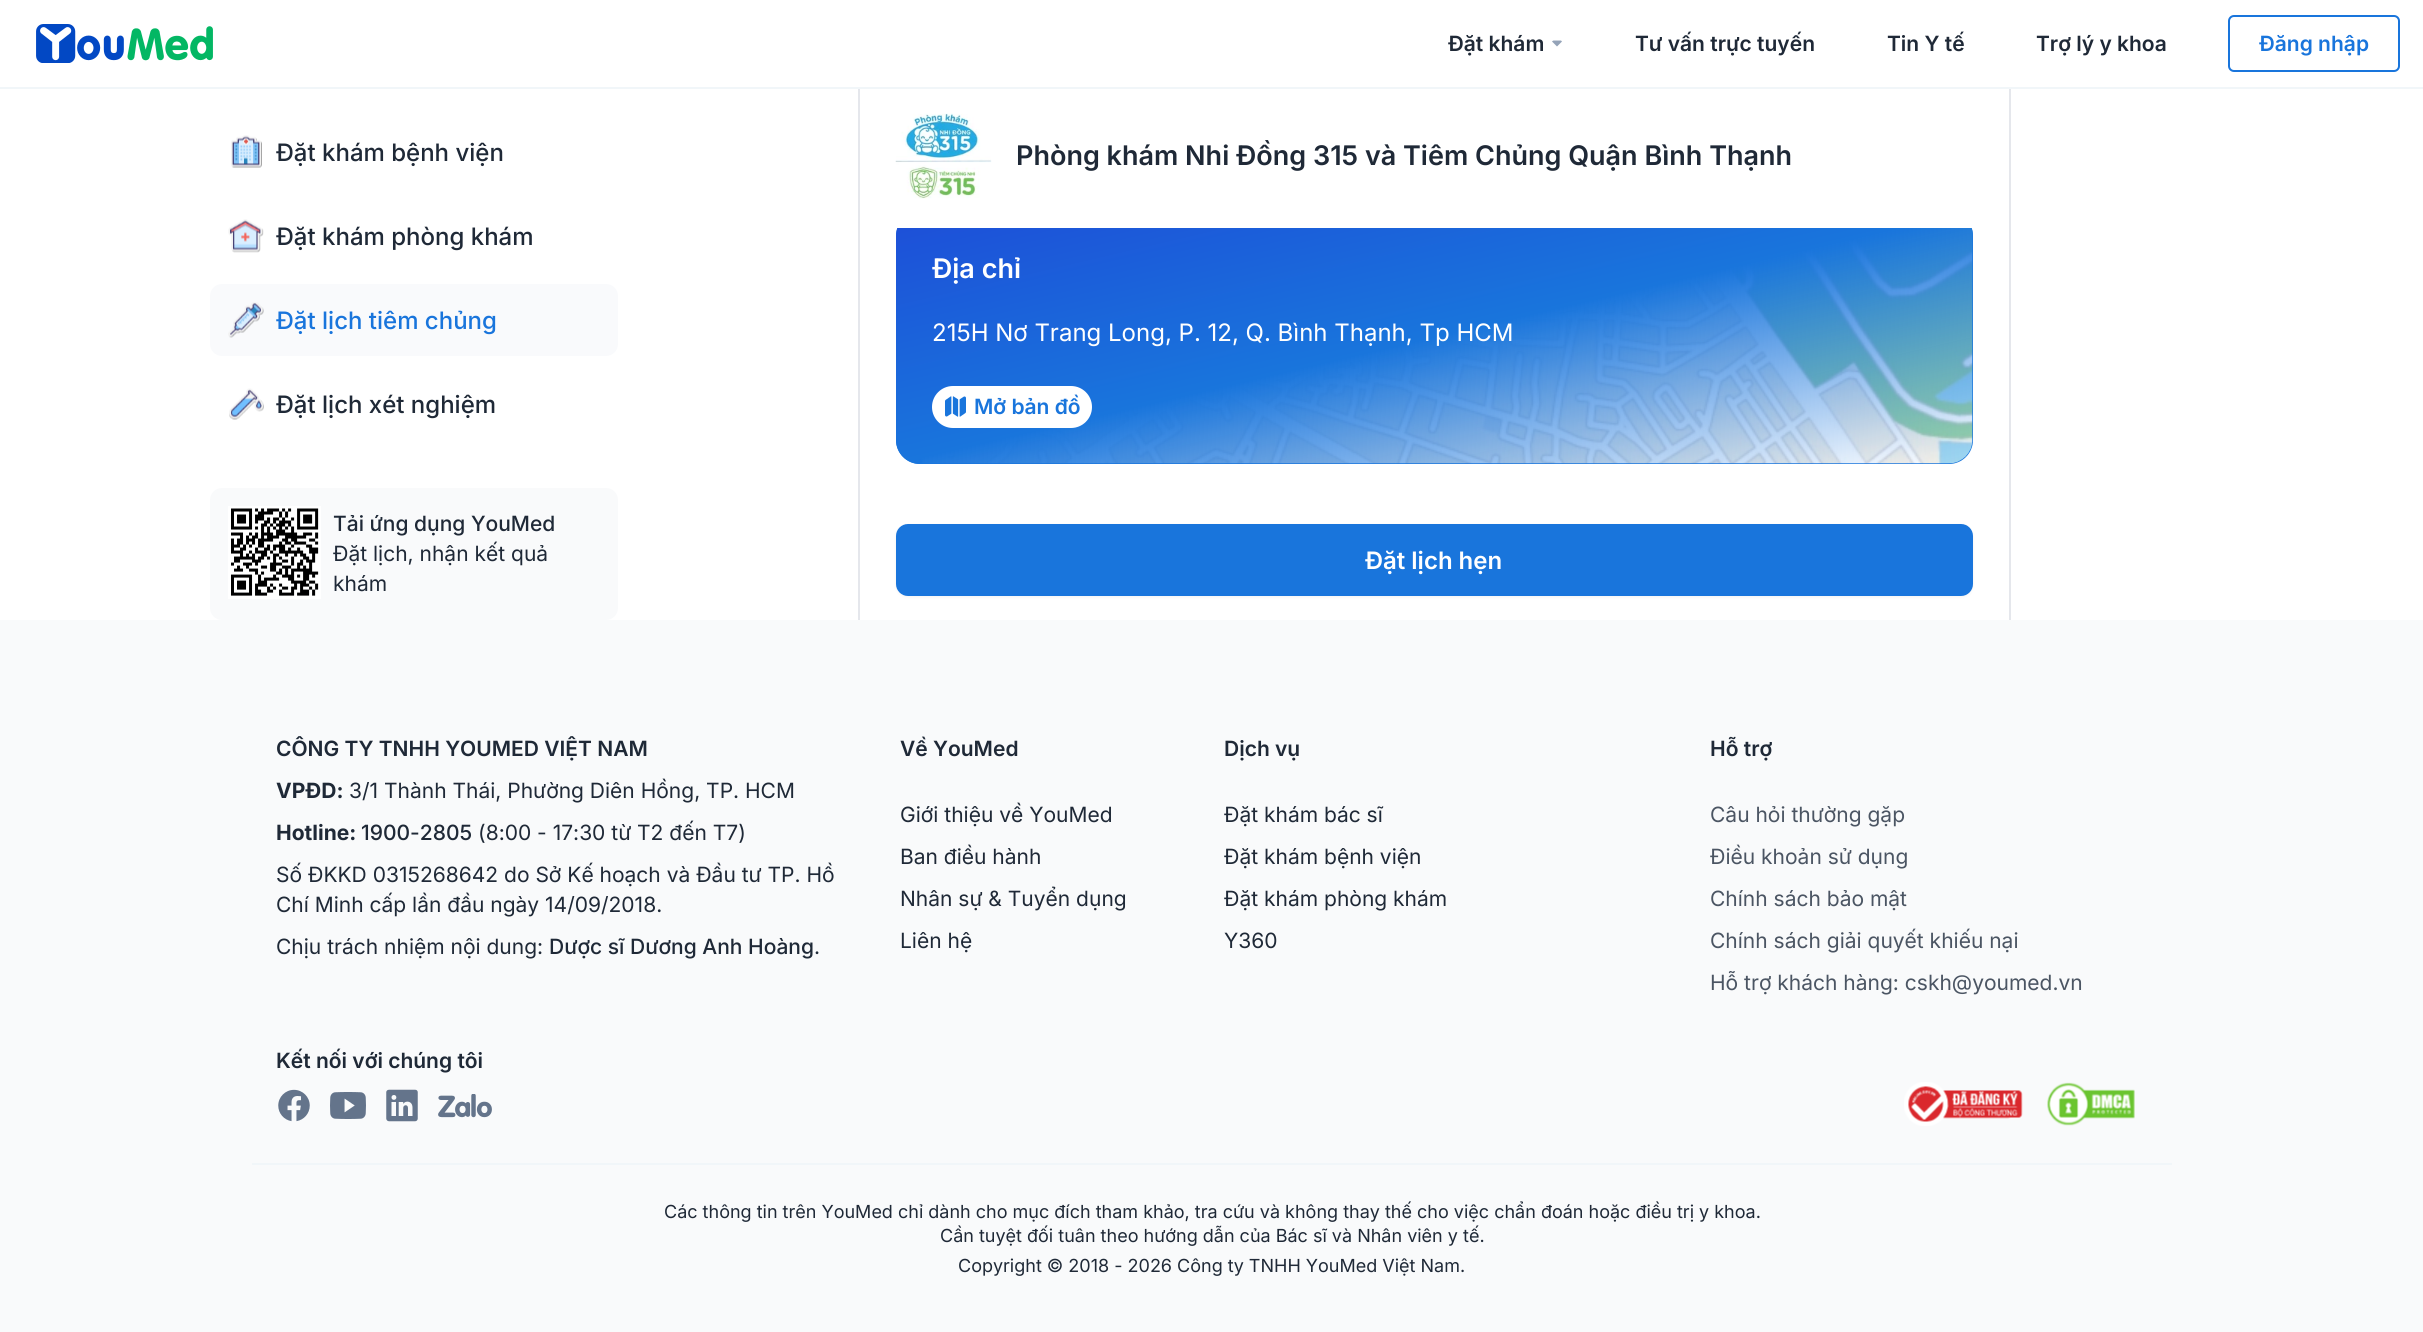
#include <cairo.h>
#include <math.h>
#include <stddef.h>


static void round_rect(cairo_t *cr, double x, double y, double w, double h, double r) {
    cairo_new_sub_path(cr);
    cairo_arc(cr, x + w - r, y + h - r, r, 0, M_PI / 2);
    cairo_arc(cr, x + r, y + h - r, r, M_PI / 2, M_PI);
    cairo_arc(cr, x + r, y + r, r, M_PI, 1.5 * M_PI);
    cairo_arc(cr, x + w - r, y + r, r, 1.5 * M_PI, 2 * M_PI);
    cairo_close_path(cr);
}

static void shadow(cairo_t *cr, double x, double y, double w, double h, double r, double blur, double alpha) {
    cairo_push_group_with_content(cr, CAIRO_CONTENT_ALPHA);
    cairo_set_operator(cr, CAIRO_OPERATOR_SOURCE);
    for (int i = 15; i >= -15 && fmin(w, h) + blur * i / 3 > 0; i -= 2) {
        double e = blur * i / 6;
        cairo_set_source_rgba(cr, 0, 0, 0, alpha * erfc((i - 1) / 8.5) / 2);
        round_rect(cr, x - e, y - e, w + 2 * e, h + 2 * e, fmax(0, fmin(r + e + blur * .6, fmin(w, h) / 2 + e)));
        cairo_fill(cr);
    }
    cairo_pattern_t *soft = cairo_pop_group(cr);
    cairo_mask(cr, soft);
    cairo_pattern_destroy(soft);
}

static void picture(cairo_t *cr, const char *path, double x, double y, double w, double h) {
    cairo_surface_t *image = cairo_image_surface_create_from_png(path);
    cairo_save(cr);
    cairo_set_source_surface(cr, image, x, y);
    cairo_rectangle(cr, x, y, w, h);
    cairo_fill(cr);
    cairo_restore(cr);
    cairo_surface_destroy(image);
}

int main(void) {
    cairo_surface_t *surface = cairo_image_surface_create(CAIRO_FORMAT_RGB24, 2423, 1332);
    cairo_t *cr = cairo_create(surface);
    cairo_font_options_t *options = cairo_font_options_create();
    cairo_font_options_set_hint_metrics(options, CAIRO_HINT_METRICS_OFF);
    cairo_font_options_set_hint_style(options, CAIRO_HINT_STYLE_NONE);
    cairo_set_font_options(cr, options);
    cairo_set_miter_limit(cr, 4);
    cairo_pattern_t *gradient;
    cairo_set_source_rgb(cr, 1, 1, 1);
    cairo_paint(cr);
    cairo_set_source_rgb(cr, 0.945, 0.961, 0.976);
    cairo_rectangle(cr, 0, 87, 2423, 2);
    cairo_fill(cr);
    picture(cr, "img1.png", 36, 24, 177, 39);
    cairo_select_font_face(cr, "Inter SemiBold", CAIRO_FONT_SLANT_NORMAL, CAIRO_FONT_WEIGHT_NORMAL);
    cairo_set_font_size(cr, 21);
    cairo_set_source_rgb(cr, 0.122, 0.161, 0.216);
    cairo_move_to(cr, 1448, 51);
    cairo_show_text(cr, "Đặt khám");
    cairo_set_source_rgb(cr, 0.58, 0.639, 0.722);
    cairo_new_path(cr);
    cairo_move_to(cr, 1554, 40.5);
    cairo_curve_to(cr, 1553, 40.5, 1552.5, 41, 1552, 41.5);
    cairo_line_to(cr, 1557, 46.5);
    cairo_line_to(cr, 1562, 41.5);
    cairo_line_to(cr, 1561, 40.5);
    cairo_close_path(cr);
    cairo_fill(cr);
    cairo_set_source_rgb(cr, 0.122, 0.161, 0.216);
    cairo_move_to(cr, 1635, 51);
    cairo_show_text(cr, "Tư vấn trực tuyến");
    cairo_move_to(cr, 1887, 51);
    cairo_show_text(cr, "Tin Y tế");
    cairo_move_to(cr, 2036, 51);
    cairo_show_text(cr, "Trợ lý y khoa");
    round_rect(cr, 2229, 16, 170, 55, 5);
    cairo_set_source_rgb(cr, 0.098, 0.459, 0.863);
    cairo_stroke(cr);
    cairo_move_to(cr, 2259, 51);
    cairo_show_text(cr, "Đăng nhập");
    picture(cr, "img2.png", 231, 135, 31, 33);
    cairo_select_font_face(cr, "Inter Medium", CAIRO_FONT_SLANT_NORMAL, CAIRO_FONT_WEIGHT_NORMAL);
    cairo_set_font_size(cr, 24);
    cairo_set_source_rgb(cr, 0.122, 0.161, 0.216);
    cairo_move_to(cr, 276, 161);
    cairo_show_text(cr, "Đặt khám bệnh viện");
    picture(cr, "img3.png", 228, 219, 36, 34);
    cairo_move_to(cr, 276, 245);
    cairo_show_text(cr, "Đặt khám phòng khám");
    cairo_set_source_rgb(cr, 0.973, 0.98, 0.988);
    round_rect(cr, 210, 284, 408, 72, 12);
    cairo_fill(cr);
    picture(cr, "img4.png", 228, 302, 36, 36);
    cairo_set_source_rgb(cr, 0.098, 0.459, 0.863);
    cairo_move_to(cr, 276, 329);
    cairo_show_text(cr, "Đặt lịch tiêm chủng");
    picture(cr, "img5.png", 229, 388, 35, 32);
    cairo_set_source_rgb(cr, 0.122, 0.161, 0.216);
    cairo_move_to(cr, 276, 413);
    cairo_show_text(cr, "Đặt lịch xét nghiệm");
    cairo_set_source_rgb(cr, 0.976, 0.98, 0.984);
    round_rect(cr, 210, 488, 408, 132, 12);
    cairo_fill(cr);
    picture(cr, "img6.png", 228, 506, 93, 93);
    cairo_set_font_size(cr, 21);
    cairo_set_source_rgb(cr, 0.122, 0.161, 0.216);
    cairo_move_to(cr, 333, 531);
    cairo_show_text(cr, "Tải ứng dụng YouMed");
    cairo_select_font_face(cr, "Inter", CAIRO_FONT_SLANT_NORMAL, CAIRO_FONT_WEIGHT_NORMAL);
    cairo_move_to(cr, 333, 561);
    cairo_show_text(cr, "Đặt lịch, nhận kết quả");
    cairo_move_to(cr, 333, 591);
    cairo_show_text(cr, "khám");
    cairo_set_source_rgb(cr, 0.898, 0.906, 0.922);
    cairo_rectangle(cr, 2009, 89, 2, 531);
    cairo_fill(cr);
    cairo_rectangle(cr, 858, 89, 2, 531);
    cairo_fill(cr);
    cairo_set_source_rgb(cr, 0.098, 0.459, 0.863);
    round_rect(cr, 896, 212, 1077, 252, 24);
    cairo_fill(cr);
    picture(cr, "img8.png", 922, 228, 1051, 236);
    gradient = cairo_pattern_create_linear(1378, 99, 1490, 576);
    cairo_pattern_add_color_stop_rgba(gradient, 0, 0.114, 0.306, 0.847, 1);
    cairo_pattern_add_color_stop_rgba(gradient, 0.5, 0.098, 0.459, 0.863, 1);
    cairo_pattern_add_color_stop_rgba(gradient, 1, 0.098, 0.459, 0.863, 0);
    cairo_set_source(cr, gradient);
    cairo_pattern_destroy(gradient);
    round_rect(cr, 896, 212, 1077, 252, 24);
    cairo_fill(cr);
    cairo_set_source_rgb(cr, 1, 1, 1);
    cairo_rectangle(cr, 897, 212, 1075, 16);
    cairo_fill(cr);
    picture(cr, "img7.png", 895, 113, 97, 86);
    cairo_select_font_face(cr, "Inter SemiBold", CAIRO_FONT_SLANT_NORMAL, CAIRO_FONT_WEIGHT_NORMAL);
    cairo_set_font_size(cr, 27);
    cairo_set_source_rgb(cr, 0.122, 0.161, 0.216);
    cairo_move_to(cr, 1016, 165);
    cairo_show_text(cr, "Phòng khám Nhi Đồng 315 và Tiêm Chủng Quận Bình Thạnh");
    cairo_set_source_rgb(cr, 1, 1, 1);
    cairo_move_to(cr, 932, 278);
    cairo_show_text(cr, "Địa chỉ");
    cairo_select_font_face(cr, "Inter", CAIRO_FONT_SLANT_NORMAL, CAIRO_FONT_WEIGHT_NORMAL);
    cairo_set_font_size(cr, 24);
    cairo_move_to(cr, 932, 341);
    cairo_show_text(cr, "215H Nơ Trang Long, P. 12, Q. Bình Thạnh, Tp HCM");
    round_rect(cr, 932, 386, 160, 42, 21);
    cairo_fill(cr);
    picture(cr, "img9.png", 945, 396, 21, 21);
    cairo_select_font_face(cr, "Inter SemiBold", CAIRO_FONT_SLANT_NORMAL, CAIRO_FONT_WEIGHT_NORMAL);
    cairo_set_font_size(cr, 21);
    cairo_set_source_rgb(cr, 0.098, 0.459, 0.863);
    cairo_move_to(cr, 974, 414);
    cairo_show_text(cr, "Mở bản đồ");
    cairo_set_source_rgb(cr, 0, 0, 0);
    shadow(cr, 896, 525, 1077, 72, 12, 1.5, 0.05);
    cairo_set_source_rgb(cr, 0.098, 0.459, 0.863);
    round_rect(cr, 896, 524, 1077, 72, 12);
    cairo_fill(cr);
    cairo_set_font_size(cr, 24);
    cairo_set_source_rgb(cr, 1, 1, 1);
    cairo_move_to(cr, 1365, 569);
    cairo_show_text(cr, "Đặt lịch hẹn");
    cairo_set_source_rgb(cr, 0.976, 0.98, 0.984);
    cairo_rectangle(cr, 0, 620, 2423, 712);
    cairo_fill(cr);
    cairo_set_font_size(cr, 21);
    cairo_set_source_rgb(cr, 0.122, 0.161, 0.216);
    cairo_move_to(cr, 276, 756);
    cairo_show_text(cr, "CÔNG TY TNHH YOUMED VIỆT NAM");
    cairo_select_font_face(cr, "Inter", CAIRO_FONT_SLANT_NORMAL, CAIRO_FONT_WEIGHT_BOLD);
    cairo_move_to(cr, 276, 798);
    cairo_show_text(cr, "VPĐD:");
    cairo_select_font_face(cr, "Inter", CAIRO_FONT_SLANT_NORMAL, CAIRO_FONT_WEIGHT_NORMAL);
    cairo_move_to(cr, 349, 798);
    cairo_show_text(cr, "3/1 Thành Thái, Phường Diên Hồng, TP. HCM");
    cairo_select_font_face(cr, "Inter", CAIRO_FONT_SLANT_NORMAL, CAIRO_FONT_WEIGHT_BOLD);
    cairo_move_to(cr, 276, 840);
    cairo_show_text(cr, "Hotline:");
    cairo_select_font_face(cr, "Inter Medium", CAIRO_FONT_SLANT_NORMAL, CAIRO_FONT_WEIGHT_NORMAL);
    cairo_move_to(cr, 361, 840);
    cairo_show_text(cr, "1900-2805");
    cairo_select_font_face(cr, "Inter", CAIRO_FONT_SLANT_NORMAL, CAIRO_FONT_WEIGHT_NORMAL);
    cairo_move_to(cr, 478, 840);
    cairo_show_text(cr, "(8:00 - 17:30 từ T2 đến T7)");
    cairo_move_to(cr, 276, 882);
    cairo_show_text(cr, "Số ĐKKD 0315268642 do Sở Kế hoạch và Đầu tư TP. Hồ");
    cairo_move_to(cr, 276, 912);
    cairo_show_text(cr, "Chí Minh cấp lần đầu ngày 14/09/2018.");
    cairo_move_to(cr, 276, 954);
    cairo_show_text(cr, "Chịu trách nhiệm nội dung:");
    cairo_select_font_face(cr, "Inter Medium", CAIRO_FONT_SLANT_NORMAL, CAIRO_FONT_WEIGHT_NORMAL);
    cairo_move_to(cr, 549, 954);
    cairo_show_text(cr, "Dược sĩ Dương Anh Hoàng");
    cairo_select_font_face(cr, "Inter", CAIRO_FONT_SLANT_NORMAL, CAIRO_FONT_WEIGHT_NORMAL);
    cairo_move_to(cr, 814, 954);
    cairo_show_text(cr, ".");
    cairo_select_font_face(cr, "Inter SemiBold", CAIRO_FONT_SLANT_NORMAL, CAIRO_FONT_WEIGHT_NORMAL);
    cairo_move_to(cr, 900, 756);
    cairo_show_text(cr, "Về YouMed");
    cairo_select_font_face(cr, "Inter", CAIRO_FONT_SLANT_NORMAL, CAIRO_FONT_WEIGHT_NORMAL);
    cairo_move_to(cr, 900, 822);
    cairo_show_text(cr, "Giới thiệu về YouMed");
    cairo_move_to(cr, 900, 864);
    cairo_show_text(cr, "Ban điều hành");
    cairo_move_to(cr, 900, 906);
    cairo_show_text(cr, "Nhân sự & Tuyển dụng");
    cairo_move_to(cr, 900, 948);
    cairo_show_text(cr, "Liên hệ");
    cairo_select_font_face(cr, "Inter SemiBold", CAIRO_FONT_SLANT_NORMAL, CAIRO_FONT_WEIGHT_NORMAL);
    cairo_move_to(cr, 1224, 756);
    cairo_show_text(cr, "Dịch vụ");
    cairo_select_font_face(cr, "Inter", CAIRO_FONT_SLANT_NORMAL, CAIRO_FONT_WEIGHT_NORMAL);
    cairo_move_to(cr, 1224, 822);
    cairo_show_text(cr, "Đặt khám bác sĩ");
    cairo_move_to(cr, 1224, 864);
    cairo_show_text(cr, "Đặt khám bệnh viện");
    cairo_move_to(cr, 1224, 906);
    cairo_show_text(cr, "Đặt khám phòng khám");
    cairo_move_to(cr, 1224, 948);
    cairo_show_text(cr, "Y360");
    cairo_select_font_face(cr, "Inter SemiBold", CAIRO_FONT_SLANT_NORMAL, CAIRO_FONT_WEIGHT_NORMAL);
    cairo_move_to(cr, 1710, 756);
    cairo_show_text(cr, "Hỗ trợ");
    cairo_select_font_face(cr, "Inter", CAIRO_FONT_SLANT_NORMAL, CAIRO_FONT_WEIGHT_NORMAL);
    cairo_set_source_rgb(cr, 0.294, 0.333, 0.388);
    cairo_move_to(cr, 1710, 822);
    cairo_show_text(cr, "Câu hỏi thường gặp");
    cairo_move_to(cr, 1710, 864);
    cairo_show_text(cr, "Điều khoản sử dụng");
    cairo_move_to(cr, 1710, 906);
    cairo_show_text(cr, "Chính sách bảo mật");
    cairo_move_to(cr, 1710, 948);
    cairo_show_text(cr, "Chính sách giải quyết khiếu nại");
    cairo_move_to(cr, 1710, 990);
    cairo_show_text(cr, "Hỗ trợ khách hàng: cskh@youmed.vn");
    cairo_select_font_face(cr, "Inter SemiBold", CAIRO_FONT_SLANT_NORMAL, CAIRO_FONT_WEIGHT_NORMAL);
    cairo_set_source_rgb(cr, 0.122, 0.161, 0.216);
    cairo_move_to(cr, 276, 1068);
    cairo_show_text(cr, "Kết nối với chúng tôi");
    picture(cr, "img10.png", 278, 1089, 32, 33);
    picture(cr, "img11.png", 330, 1092, 36, 27);
    picture(cr, "img12.png", 386, 1089, 32, 33);
    picture(cr, "img13.png", 438, 1094, 54, 24);
    picture(cr, "img14.png", 1904, 1082, 119, 44);
    picture(cr, "img15.png", 2047, 1082, 88, 44);
    cairo_set_source_rgb(cr, 0.945, 0.961, 0.976);
    cairo_rectangle(cr, 252, 1163, 1920, 2);
    cairo_fill(cr);
    cairo_select_font_face(cr, "Inter", CAIRO_FONT_SLANT_NORMAL, CAIRO_FONT_WEIGHT_NORMAL);
    cairo_set_font_size(cr, 18);
    cairo_set_source_rgb(cr, 0.122, 0.161, 0.216);
    cairo_move_to(cr, 664, 1218);
    cairo_show_text(cr, "Các thông tin trên YouMed chỉ dành cho mục đích tham khảo, tra cứu và không thay thế cho việc chẩn đoán hoặc điều trị y khoa.");
    cairo_move_to(cr, 940, 1242);
    cairo_show_text(cr, "Cần tuyệt đối tuân theo hướng dẫn của Bác sĩ và Nhân viên y tế.");
    cairo_move_to(cr, 958, 1272);
    cairo_show_text(cr, "Copyright © 2018 - 2026 Công ty TNHH YouMed Việt Nam.");
    cairo_surface_write_to_png(surface, "page.png");
    cairo_font_options_destroy(options);
    cairo_destroy(cr);
    cairo_surface_destroy(surface);
    return 0;
}
